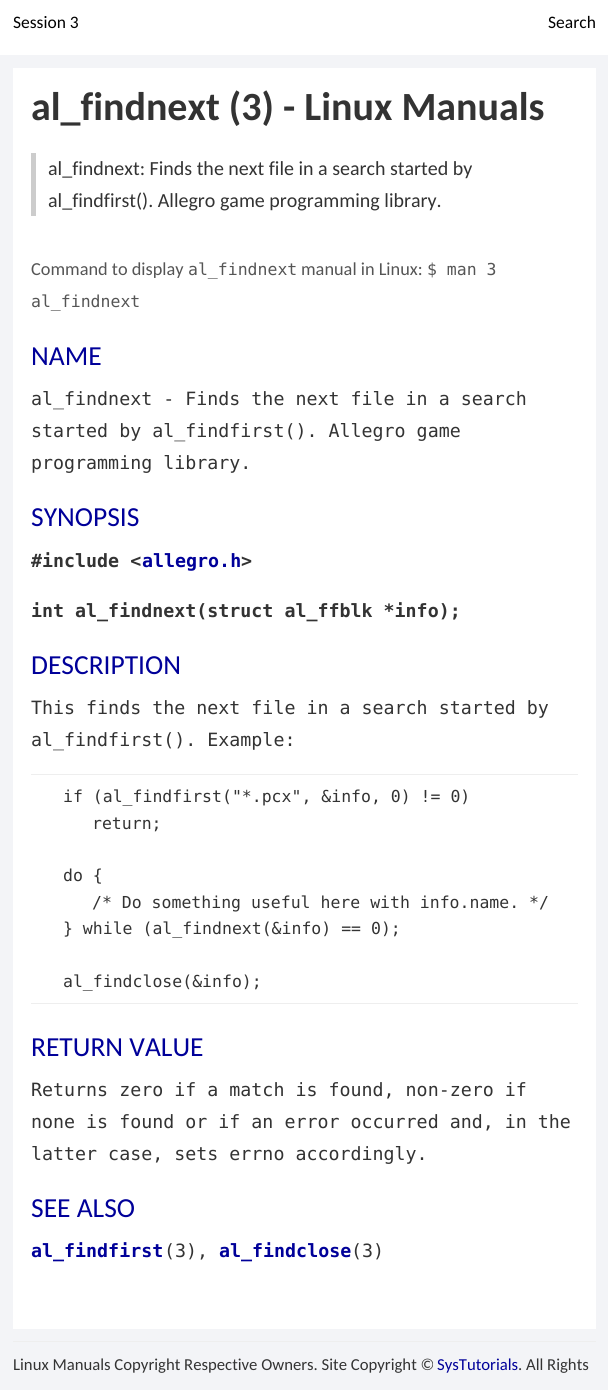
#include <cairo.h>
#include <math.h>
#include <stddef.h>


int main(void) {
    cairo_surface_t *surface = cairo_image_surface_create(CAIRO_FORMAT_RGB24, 608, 1390);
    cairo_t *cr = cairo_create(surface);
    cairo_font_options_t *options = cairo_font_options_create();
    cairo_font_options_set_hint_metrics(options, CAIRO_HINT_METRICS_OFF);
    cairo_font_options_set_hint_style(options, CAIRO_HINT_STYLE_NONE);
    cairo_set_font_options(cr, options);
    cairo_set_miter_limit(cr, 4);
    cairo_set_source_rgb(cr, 0.953, 0.957, 0.965);
    cairo_paint(cr);
    cairo_set_source_rgb(cr, 1, 1, 1);
    cairo_rectangle(cr, 0, 0, 608, 55);
    cairo_fill(cr);
    cairo_select_font_face(cr, "Carlito", CAIRO_FONT_SLANT_NORMAL, CAIRO_FONT_WEIGHT_NORMAL);
    cairo_set_font_size(cr, 17.5);
    cairo_set_source_rgb(cr, 0, 0, 0);
    cairo_move_to(cr, 13, 28);
    cairo_show_text(cr, "Session 3");
    cairo_move_to(cr, 548, 28);
    cairo_show_text(cr, "Search");
    cairo_set_source_rgb(cr, 1, 1, 1);
    cairo_rectangle(cr, 13, 68, 583, 1261);
    cairo_fill(cr);
    cairo_select_font_face(cr, "Carlito", CAIRO_FONT_SLANT_NORMAL, CAIRO_FONT_WEIGHT_BOLD);
    cairo_set_font_size(cr, 40);
    cairo_set_source_rgb(cr, 0.2, 0.2, 0.2);
    cairo_move_to(cr, 31, 120);
    cairo_show_text(cr, "al_findnext (3) - Linux Manuals");
    cairo_set_source_rgb(cr, 0.8, 0.8, 0.8);
    cairo_rectangle(cr, 31, 153, 5, 63);
    cairo_fill(cr);
    cairo_select_font_face(cr, "Carlito", CAIRO_FONT_SLANT_NORMAL, CAIRO_FONT_WEIGHT_NORMAL);
    cairo_set_font_size(cr, 20);
    cairo_set_source_rgb(cr, 0.2, 0.2, 0.2);
    cairo_move_to(cr, 48, 175);
    cairo_show_text(cr, "al_findnext: Finds the next file in a search started by");
    cairo_move_to(cr, 48, 207);
    cairo_show_text(cr, "al_findfirst(). Allegro game programming library.");
    cairo_set_font_size(cr, 18.3);
    cairo_set_source_rgb(cr, 0.333, 0.333, 0.333);
    cairo_move_to(cr, 31, 275);
    cairo_show_text(cr, "Command to display");
    cairo_select_font_face(cr, "DejaVu Sans Mono", CAIRO_FONT_SLANT_NORMAL, CAIRO_FONT_WEIGHT_NORMAL);
    cairo_set_font_size(cr, 16.5);
    cairo_move_to(cr, 188, 275);
    cairo_show_text(cr, "al_findnext");
    cairo_select_font_face(cr, "Carlito", CAIRO_FONT_SLANT_NORMAL, CAIRO_FONT_WEIGHT_NORMAL);
    cairo_set_font_size(cr, 18.3);
    cairo_move_to(cr, 301, 275);
    cairo_show_text(cr, "manual in Linux:");
    cairo_select_font_face(cr, "DejaVu Sans Mono", CAIRO_FONT_SLANT_NORMAL, CAIRO_FONT_WEIGHT_NORMAL);
    cairo_set_font_size(cr, 16.5);
    cairo_move_to(cr, 427, 275);
    cairo_show_text(cr, "$ man 3");
    cairo_move_to(cr, 31, 307);
    cairo_show_text(cr, "al_findnext");
    cairo_select_font_face(cr, "Carlito", CAIRO_FONT_SLANT_NORMAL, CAIRO_FONT_WEIGHT_NORMAL);
    cairo_set_font_size(cr, 27.5);
    cairo_set_source_rgb(cr, 0, 0, 0.6);
    cairo_move_to(cr, 31, 365);
    cairo_show_text(cr, "NAME");
    cairo_select_font_face(cr, "DejaVu Sans Mono", CAIRO_FONT_SLANT_NORMAL, CAIRO_FONT_WEIGHT_NORMAL);
    cairo_set_font_size(cr, 18.3);
    cairo_set_source_rgb(cr, 0.2, 0.2, 0.2);
    cairo_move_to(cr, 31, 405);
    cairo_show_text(cr, "al_findnext - Finds the next file in a search");
    cairo_move_to(cr, 31, 437);
    cairo_show_text(cr, "started by al_findfirst(). Allegro game");
    cairo_move_to(cr, 31, 469);
    cairo_show_text(cr, "programming library.");
    cairo_select_font_face(cr, "Carlito", CAIRO_FONT_SLANT_NORMAL, CAIRO_FONT_WEIGHT_NORMAL);
    cairo_set_font_size(cr, 27.5);
    cairo_set_source_rgb(cr, 0, 0, 0.6);
    cairo_move_to(cr, 31, 526);
    cairo_show_text(cr, "SYNOPSIS");
    cairo_select_font_face(cr, "DejaVu Sans Mono", CAIRO_FONT_SLANT_NORMAL, CAIRO_FONT_WEIGHT_BOLD);
    cairo_set_font_size(cr, 18.3);
    cairo_set_source_rgb(cr, 0.2, 0.2, 0.2);
    cairo_move_to(cr, 31, 567);
    cairo_show_text(cr, "#include <");
    cairo_set_source_rgb(cr, 0, 0, 0.6);
    cairo_move_to(cr, 142, 567);
    cairo_show_text(cr, "allegro.h");
    cairo_set_source_rgb(cr, 0.2, 0.2, 0.2);
    cairo_move_to(cr, 241, 567);
    cairo_show_text(cr, ">");
    cairo_move_to(cr, 31, 617);
    cairo_show_text(cr, "int al_findnext(struct al_ffblk *info);");
    cairo_select_font_face(cr, "Carlito", CAIRO_FONT_SLANT_NORMAL, CAIRO_FONT_WEIGHT_NORMAL);
    cairo_set_font_size(cr, 27.5);
    cairo_set_source_rgb(cr, 0, 0, 0.6);
    cairo_move_to(cr, 31, 674);
    cairo_show_text(cr, "DESCRIPTION");
    cairo_select_font_face(cr, "DejaVu Sans Mono", CAIRO_FONT_SLANT_NORMAL, CAIRO_FONT_WEIGHT_NORMAL);
    cairo_set_font_size(cr, 18.3);
    cairo_set_source_rgb(cr, 0.2, 0.2, 0.2);
    cairo_move_to(cr, 31, 714);
    cairo_show_text(cr, "This finds the next file in a search started by");
    cairo_move_to(cr, 31, 746);
    cairo_show_text(cr, "al_findfirst(). Example:");
    cairo_set_source_rgb(cr, 0.933, 0.933, 0.933);
    cairo_rectangle(cr, 31, 774, 547, 1);
    cairo_fill(cr);
    cairo_rectangle(cr, 31, 1003, 547, 1);
    cairo_fill(cr);
    cairo_set_font_size(cr, 16.5);
    cairo_set_source_rgb(cr, 0.2, 0.2, 0.2);
    cairo_move_to(cr, 63, 802);
    cairo_show_text(cr, "if (al_findfirst(\"*.pcx\", &info, 0) != 0)");
    cairo_move_to(cr, 92, 829);
    cairo_show_text(cr, "return;");
    cairo_move_to(cr, 63, 881);
    cairo_show_text(cr, "do {");
    cairo_move_to(cr, 92, 908);
    cairo_show_text(cr, "/* Do something useful here with info.name. */");
    cairo_move_to(cr, 63, 934);
    cairo_show_text(cr, "} while (al_findnext(&info) == 0);");
    cairo_move_to(cr, 63, 987);
    cairo_show_text(cr, "al_findclose(&info);");
    cairo_select_font_face(cr, "Carlito", CAIRO_FONT_SLANT_NORMAL, CAIRO_FONT_WEIGHT_NORMAL);
    cairo_set_font_size(cr, 27.5);
    cairo_set_source_rgb(cr, 0, 0, 0.6);
    cairo_move_to(cr, 31, 1056);
    cairo_show_text(cr, "RETURN VALUE");
    cairo_select_font_face(cr, "DejaVu Sans Mono", CAIRO_FONT_SLANT_NORMAL, CAIRO_FONT_WEIGHT_NORMAL);
    cairo_set_font_size(cr, 18.3);
    cairo_set_source_rgb(cr, 0.2, 0.2, 0.2);
    cairo_move_to(cr, 31, 1096);
    cairo_show_text(cr, "Returns zero if a match is found, non-zero if");
    cairo_move_to(cr, 31, 1128);
    cairo_show_text(cr, "none is found or if an error occurred and, in the");
    cairo_move_to(cr, 31, 1160);
    cairo_show_text(cr, "latter case, sets errno accordingly.");
    cairo_select_font_face(cr, "Carlito", CAIRO_FONT_SLANT_NORMAL, CAIRO_FONT_WEIGHT_NORMAL);
    cairo_set_font_size(cr, 27.5);
    cairo_set_source_rgb(cr, 0, 0, 0.6);
    cairo_move_to(cr, 31, 1217);
    cairo_show_text(cr, "SEE ALSO");
    cairo_select_font_face(cr, "DejaVu Sans Mono", CAIRO_FONT_SLANT_NORMAL, CAIRO_FONT_WEIGHT_BOLD);
    cairo_set_font_size(cr, 18.3);
    cairo_move_to(cr, 31, 1257);
    cairo_show_text(cr, "al_findfirst");
    cairo_select_font_face(cr, "DejaVu Sans Mono", CAIRO_FONT_SLANT_NORMAL, CAIRO_FONT_WEIGHT_NORMAL);
    cairo_set_source_rgb(cr, 0.2, 0.2, 0.2);
    cairo_move_to(cr, 164, 1257);
    cairo_show_text(cr, "(3),");
    cairo_select_font_face(cr, "DejaVu Sans Mono", CAIRO_FONT_SLANT_NORMAL, CAIRO_FONT_WEIGHT_BOLD);
    cairo_set_source_rgb(cr, 0, 0, 0.6);
    cairo_move_to(cr, 219, 1257);
    cairo_show_text(cr, "al_findclose");
    cairo_select_font_face(cr, "DejaVu Sans Mono", CAIRO_FONT_SLANT_NORMAL, CAIRO_FONT_WEIGHT_NORMAL);
    cairo_set_source_rgb(cr, 0.2, 0.2, 0.2);
    cairo_move_to(cr, 351, 1257);
    cairo_show_text(cr, "(3)");
    cairo_set_source_rgb(cr, 0.933, 0.933, 0.933);
    cairo_rectangle(cr, 13, 1341, 583, 1);
    cairo_fill(cr);
    cairo_select_font_face(cr, "Carlito", CAIRO_FONT_SLANT_NORMAL, CAIRO_FONT_WEIGHT_NORMAL);
    cairo_set_font_size(cr, 16.7);
    cairo_set_source_rgb(cr, 0.2, 0.2, 0.2);
    cairo_move_to(cr, 13, 1370);
    cairo_show_text(cr, "Linux Manuals Copyright Respective Owners. Site Copyright ©");
    cairo_set_source_rgb(cr, 0, 0, 0.6);
    cairo_move_to(cr, 437, 1370);
    cairo_show_text(cr, "SysTutorials");
    cairo_set_source_rgb(cr, 0.2, 0.2, 0.2);
    cairo_move_to(cr, 518, 1370);
    cairo_show_text(cr, ". All Rights");
    cairo_surface_write_to_png(surface, "page.png");
    cairo_font_options_destroy(options);
    cairo_destroy(cr);
    cairo_surface_destroy(surface);
    return 0;
}
